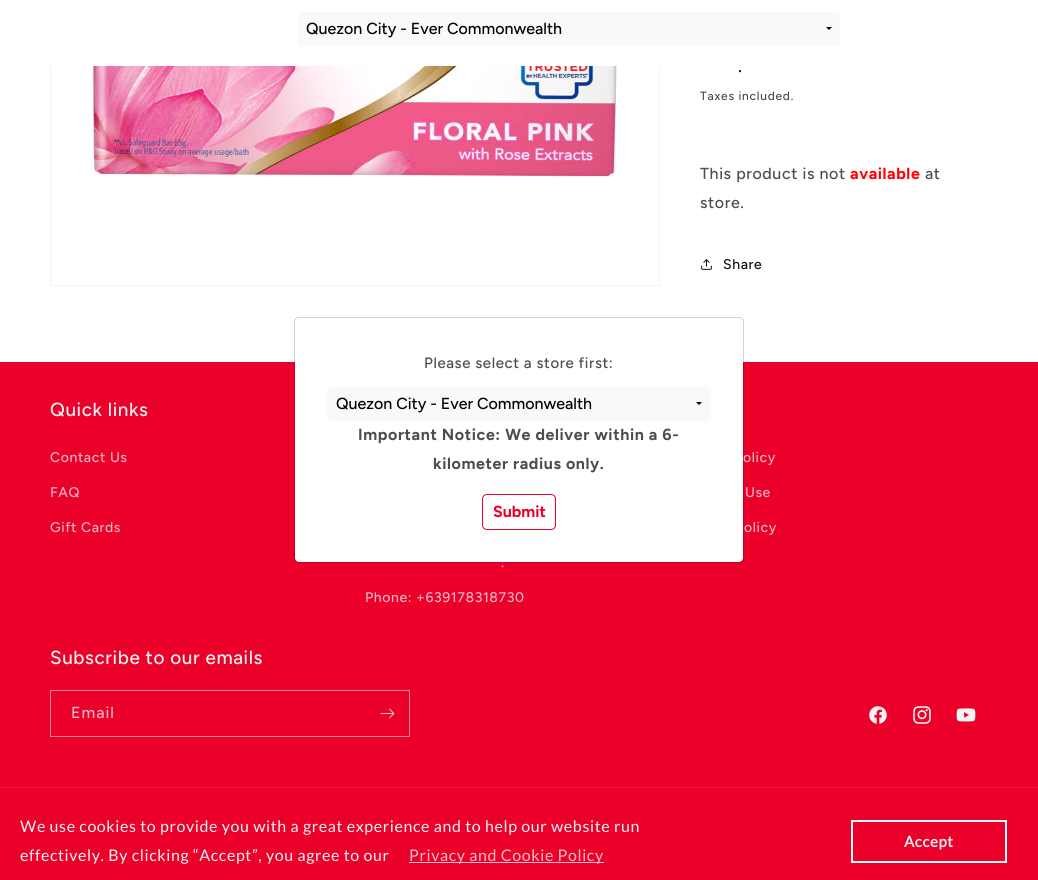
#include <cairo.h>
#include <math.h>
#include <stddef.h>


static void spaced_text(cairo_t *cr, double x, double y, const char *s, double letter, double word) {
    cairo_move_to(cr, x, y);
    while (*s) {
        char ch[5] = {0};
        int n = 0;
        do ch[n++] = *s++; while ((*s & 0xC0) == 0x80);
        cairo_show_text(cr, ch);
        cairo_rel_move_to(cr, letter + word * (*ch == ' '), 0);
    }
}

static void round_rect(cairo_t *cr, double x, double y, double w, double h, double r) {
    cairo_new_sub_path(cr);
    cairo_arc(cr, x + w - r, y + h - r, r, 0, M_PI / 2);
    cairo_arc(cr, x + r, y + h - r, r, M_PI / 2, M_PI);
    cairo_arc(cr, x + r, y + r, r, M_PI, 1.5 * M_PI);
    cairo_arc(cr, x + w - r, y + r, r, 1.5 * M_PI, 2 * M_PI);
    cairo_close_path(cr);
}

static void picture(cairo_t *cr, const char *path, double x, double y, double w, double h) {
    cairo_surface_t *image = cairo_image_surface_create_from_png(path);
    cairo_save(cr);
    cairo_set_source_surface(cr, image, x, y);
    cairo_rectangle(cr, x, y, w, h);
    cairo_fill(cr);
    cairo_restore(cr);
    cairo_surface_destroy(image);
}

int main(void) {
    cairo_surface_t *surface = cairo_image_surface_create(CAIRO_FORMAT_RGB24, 1038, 880);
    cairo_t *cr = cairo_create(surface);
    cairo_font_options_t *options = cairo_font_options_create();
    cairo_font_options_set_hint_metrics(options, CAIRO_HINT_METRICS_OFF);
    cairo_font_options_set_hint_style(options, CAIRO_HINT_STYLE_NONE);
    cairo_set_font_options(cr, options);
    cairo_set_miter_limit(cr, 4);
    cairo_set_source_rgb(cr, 1, 1, 1);
    cairo_paint(cr);
    cairo_rectangle(cr, 50.5, -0.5, 609, 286);
    cairo_set_source_rgb(cr, 0.953, 0.953, 0.953);
    cairo_set_line_width(cr, 1);
    cairo_stroke(cr);
    cairo_set_source_rgb(cr, 1, 1, 1);
    cairo_rectangle(cr, 50, 0, 610, 66);
    cairo_fill(cr);
    cairo_set_source_rgb(cr, 0.973, 0.976, 0.98);
    round_rect(cr, 298, 12, 542, 34, 4);
    cairo_fill(cr);
    cairo_select_font_face(cr, "Figtree Medium", CAIRO_FONT_SLANT_NORMAL, CAIRO_FONT_WEIGHT_NORMAL);
    cairo_set_font_size(cr, 16);
    cairo_set_source_rgb(cr, 0, 0, 0);
    cairo_move_to(cr, 306, 34);
    cairo_show_text(cr, "Quezon City - Ever Commonwealth");
    cairo_new_path(cr);
    cairo_move_to(cr, 826, 27);
    cairo_line_to(cr, 832, 27);
    cairo_line_to(cr, 829, 30);
    cairo_close_path(cr);
    cairo_fill(cr);
    picture(cr, "img1.png", 91, 66, 526, 111);
    cairo_set_font_size(cr, 18);
    cairo_set_source_rgb(cr, 0.071, 0.071, 0.071);
    spaced_text(cr, 738, 72, ".", 1, 0);
    cairo_set_font_size(cr, 12);
    cairo_set_source_rgb(cr, 0.302, 0.302, 0.302);
    spaced_text(cr, 700, 100, "Taxes included.", 0.75, 0);
    cairo_set_font_size(cr, 16);
    spaced_text(cr, 700, 179, "This product is not", 0.6, 0);
    cairo_select_font_face(cr, "Figtree", CAIRO_FONT_SLANT_NORMAL, CAIRO_FONT_WEIGHT_BOLD);
    cairo_set_source_rgb(cr, 1, 0, 0);
    spaced_text(cr, 850, 179, "available", 0.6, 0);
    cairo_select_font_face(cr, "Figtree Medium", CAIRO_FONT_SLANT_NORMAL, CAIRO_FONT_WEIGHT_NORMAL);
    cairo_set_source_rgb(cr, 0.302, 0.302, 0.302);
    spaced_text(cr, 925, 179, "at", 0.6, 0);
    spaced_text(cr, 700, 208, "store.", 0.6, 0);
    picture(cr, "img2.png", 701, 259, 11, 11);
    cairo_set_font_size(cr, 14);
    cairo_set_source_rgb(cr, 0.071, 0.071, 0.071);
    spaced_text(cr, 723, 269, "Share", 0.6, 0);
    cairo_set_source_rgb(cr, 0.918, 0, 0.165);
    cairo_rectangle(cr, 0, 362, 1038, 518);
    cairo_fill(cr);
    cairo_set_source_rgb(cr, 1, 1, 1);
    round_rect(cr, 295, 318, 448, 244, 4);
    cairo_fill(cr);
    cairo_set_source_rgb(cr, 0.945, 0.714, 0.757);
    spaced_text(cr, 743, 462, "olicy", 0.6, 0);
    round_rect(cr, 294.5, 317.5, 449, 245, 4.5);
    cairo_set_source_rgba(cr, 0, 0, 0, 0.18);
    cairo_stroke(cr);
    cairo_set_font_size(cr, 15);
    cairo_set_source_rgb(cr, 0.302, 0.302, 0.302);
    spaced_text(cr, 424, 368, "Please select a store first:", 0.6, 0);
    cairo_set_source_rgb(cr, 0.973, 0.976, 0.98);
    round_rect(cr, 327, 387, 384, 34, 4);
    cairo_fill(cr);
    cairo_set_font_size(cr, 16);
    cairo_set_source_rgb(cr, 0, 0, 0);
    cairo_move_to(cr, 336, 409);
    cairo_show_text(cr, "Quezon City - Ever Commonwealth");
    cairo_new_path(cr);
    cairo_move_to(cr, 696, 402);
    cairo_line_to(cr, 702, 402);
    cairo_line_to(cr, 699, 405);
    cairo_close_path(cr);
    cairo_fill(cr);
    cairo_select_font_face(cr, "Figtree", CAIRO_FONT_SLANT_NORMAL, CAIRO_FONT_WEIGHT_BOLD);
    cairo_set_source_rgb(cr, 0.302, 0.302, 0.302);
    spaced_text(cr, 358, 440, "Important Notice: We deliver within a 6-", 0.6, 0);
    spaced_text(cr, 433, 469, "kilometer radius only.", 0.6, 0);
    round_rect(cr, 482.5, 494.5, 73, 35, 4.5);
    cairo_set_source_rgb(cr, 0.918, 0, 0.165);
    cairo_stroke(cr);
    cairo_move_to(cr, 493, 517);
    cairo_show_text(cr, "Submit");
    cairo_select_font_face(cr, "Figtree Medium", CAIRO_FONT_SLANT_NORMAL, CAIRO_FONT_WEIGHT_NORMAL);
    cairo_set_font_size(cr, 18.9);
    cairo_set_source_rgb(cr, 0.953, 0.953, 0.953);
    spaced_text(cr, 50, 416, "Quick links", 0.6, 0);
    cairo_set_font_size(cr, 14);
    cairo_set_source_rgb(cr, 0.945, 0.714, 0.757);
    spaced_text(cr, 50, 462, "Contact Us", 0.6, 0);
    spaced_text(cr, 50, 497, "FAQ", 0.6, 0);
    spaced_text(cr, 50, 532, "Gift Cards", 0.6, 0);
    spaced_text(cr, 745, 497, "Use", 0.6, 0);
    spaced_text(cr, 744, 532, "olicy", 0.6, 0);
    spaced_text(cr, 501, 567, ".", 0.6, 0);
    spaced_text(cr, 365, 602, "Phone: +639178318730", 0.6, 0);
    cairo_set_font_size(cr, 18.9);
    cairo_set_source_rgb(cr, 0.953, 0.953, 0.953);
    spaced_text(cr, 50, 664, "Subscribe to our emails", 0.6, 0);
    cairo_rectangle(cr, 50.5, 690.5, 359, 46);
    cairo_set_source_rgb(cr, 0.937, 0.525, 0.6);
    cairo_stroke(cr);
    cairo_set_font_size(cr, 16);
    cairo_set_source_rgb(cr, 0.945, 0.714, 0.757);
    spaced_text(cr, 71, 718, "Email", 1, 0);
    picture(cr, "img3.png", 380, 708, 15, 11);
    picture(cr, "img4.png", 869, 706, 18, 18);
    picture(cr, "img5.png", 913, 706, 18, 18);
    picture(cr, "img6.png", 956, 708, 20, 14);
    cairo_set_source_rgb(cr, 0.922, 0.075, 0.227);
    cairo_rectangle(cr, 0, 787, 1038, 1);
    cairo_fill(cr);
    cairo_select_font_face(cr, "Lato", CAIRO_FONT_SLANT_NORMAL, CAIRO_FONT_WEIGHT_NORMAL);
    cairo_set_source_rgb(cr, 0.953, 0.953, 0.953);
    spaced_text(cr, 20, 832, "We use cookies to provide you with a great experience and to help our website run", 0.6, 0);
    spaced_text(cr, 20, 861, "effectively. By clicking “Accept”, you agree to our", 0.6, 0);
    cairo_set_source_rgb(cr, 0.945, 0.761, 0.796);
    cairo_rectangle(cr, 409, 862, 195, 1);
    cairo_fill(cr);
    spaced_text(cr, 409, 861, "Privacy and Cookie Policy", 0.6, 0);
    cairo_rectangle(cr, 852, 821, 154, 41);
    cairo_set_source_rgb(cr, 1, 1, 1);
    cairo_set_line_width(cr, 2);
    cairo_stroke(cr);
    cairo_select_font_face(cr, "Lato", CAIRO_FONT_SLANT_NORMAL, CAIRO_FONT_WEIGHT_BOLD);
    cairo_set_font_size(cr, 15);
    cairo_set_source_rgb(cr, 0.953, 0.953, 0.953);
    spaced_text(cr, 904, 847, "Accept", 0.6, 0);
    cairo_surface_write_to_png(surface, "page.png");
    cairo_font_options_destroy(options);
    cairo_destroy(cr);
    cairo_surface_destroy(surface);
    return 0;
}
